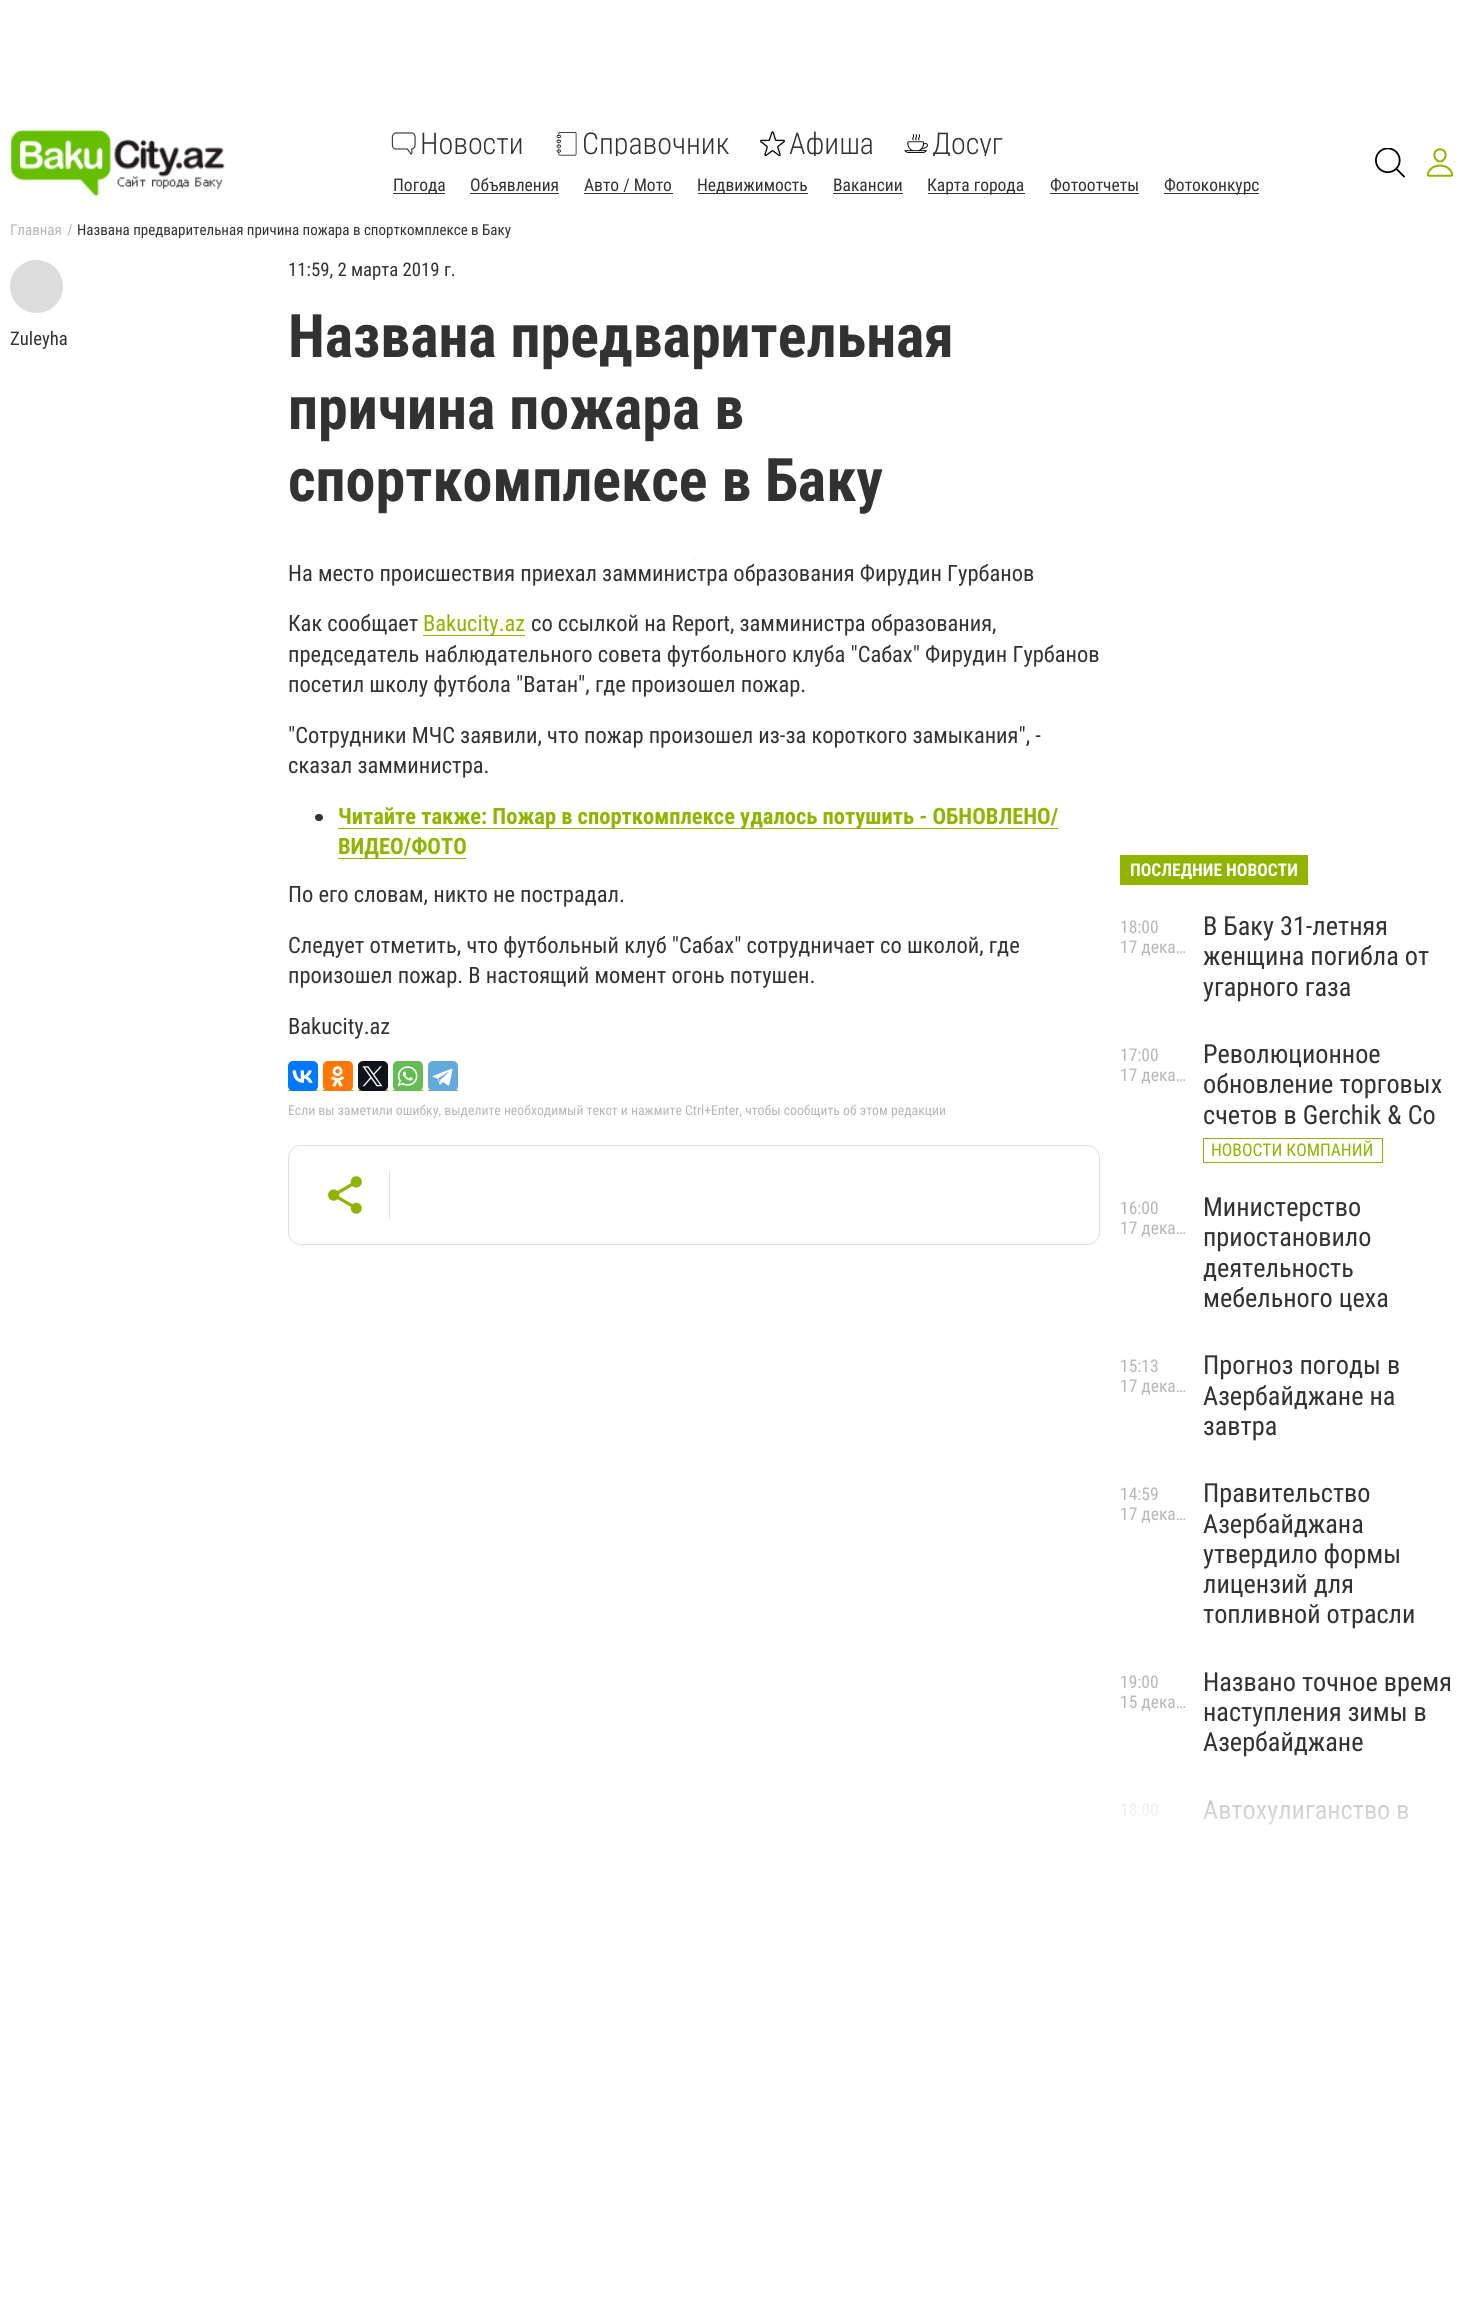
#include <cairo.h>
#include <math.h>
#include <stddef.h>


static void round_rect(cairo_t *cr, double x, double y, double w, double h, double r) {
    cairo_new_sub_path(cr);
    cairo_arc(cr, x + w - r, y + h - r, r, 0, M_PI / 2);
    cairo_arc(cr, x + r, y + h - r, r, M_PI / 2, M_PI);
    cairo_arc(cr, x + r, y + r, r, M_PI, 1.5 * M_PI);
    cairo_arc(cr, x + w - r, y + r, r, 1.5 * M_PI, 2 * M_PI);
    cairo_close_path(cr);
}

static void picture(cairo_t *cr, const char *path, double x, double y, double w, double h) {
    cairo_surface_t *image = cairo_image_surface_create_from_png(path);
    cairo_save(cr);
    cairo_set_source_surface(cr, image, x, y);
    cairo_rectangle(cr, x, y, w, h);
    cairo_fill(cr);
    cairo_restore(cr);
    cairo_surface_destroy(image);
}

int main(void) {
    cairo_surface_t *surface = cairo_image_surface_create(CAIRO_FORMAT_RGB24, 1480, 2309);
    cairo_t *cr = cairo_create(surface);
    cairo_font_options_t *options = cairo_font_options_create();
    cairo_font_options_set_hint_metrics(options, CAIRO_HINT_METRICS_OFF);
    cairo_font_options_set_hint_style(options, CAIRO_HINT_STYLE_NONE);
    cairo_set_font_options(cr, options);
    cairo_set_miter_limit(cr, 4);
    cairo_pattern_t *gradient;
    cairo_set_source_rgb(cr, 1, 1, 1);
    cairo_paint(cr);
    picture(cr, "img1.png", 10, 129, 215, 68);
    picture(cr, "img2.png", 391, 132, 25, 23);
    cairo_select_font_face(cr, "Roboto Condensed Light", CAIRO_FONT_SLANT_NORMAL, CAIRO_FONT_WEIGHT_NORMAL);
    cairo_set_font_size(cr, 30);
    cairo_set_source_rgb(cr, 0.196, 0.196, 0.196);
    cairo_move_to(cr, 420, 154);
    cairo_show_text(cr, "Новости");
    picture(cr, "img3.png", 556, 132, 21, 24);
    cairo_save(cr);
    cairo_rectangle(cr, 554, 131, 176, 25);
    cairo_clip(cr);
    cairo_move_to(cr, 582, 154);
    cairo_show_text(cr, "Справочник");
    cairo_restore(cr);
    picture(cr, "img4.png", 760, 131, 25, 25);
    cairo_save(cr);
    cairo_rectangle(cr, 760, 131, 114, 25);
    cairo_clip(cr);
    cairo_move_to(cr, 789, 154);
    cairo_show_text(cr, "Афиша");
    cairo_restore(cr);
    picture(cr, "img5.png", 904, 134, 24, 19);
    cairo_save(cr);
    cairo_rectangle(cr, 904, 131, 100, 25);
    cairo_clip(cr);
    cairo_move_to(cr, 932, 154);
    cairo_show_text(cr, "Досуг");
    cairo_restore(cr);
    cairo_rectangle(cr, 393, 193, 52, 1);
    cairo_fill(cr);
    cairo_select_font_face(cr, "Roboto Condensed", CAIRO_FONT_SLANT_NORMAL, CAIRO_FONT_WEIGHT_NORMAL);
    cairo_set_font_size(cr, 17.5);
    cairo_move_to(cr, 393, 191);
    cairo_show_text(cr, "Погода");
    cairo_move_to(cr, 470, 191);
    cairo_show_text(cr, "Объявления");
    cairo_rectangle(cr, 470, 193, 89, 1);
    cairo_fill(cr);
    cairo_move_to(cr, 584, 191);
    cairo_show_text(cr, "Авто / Мото");
    cairo_rectangle(cr, 584, 193, 89, 1);
    cairo_fill(cr);
    cairo_rectangle(cr, 698, 193, 110, 1);
    cairo_fill(cr);
    cairo_move_to(cr, 697, 191);
    cairo_show_text(cr, "Недвижимость");
    cairo_move_to(cr, 833, 191);
    cairo_show_text(cr, "Вакансии");
    cairo_rectangle(cr, 833, 193, 70, 1);
    cairo_fill(cr);
    cairo_rectangle(cr, 928, 193, 97, 1);
    cairo_fill(cr);
    cairo_move_to(cr, 927, 191);
    cairo_show_text(cr, "Карта города");
    cairo_move_to(cr, 1050, 191);
    cairo_show_text(cr, "Фотоотчеты");
    cairo_rectangle(cr, 1050, 193, 89, 1);
    cairo_fill(cr);
    cairo_rectangle(cr, 1164, 193, 95, 1);
    cairo_fill(cr);
    cairo_move_to(cr, 1164, 191);
    cairo_show_text(cr, "Фотоконкурс");
    picture(cr, "img6.png", 1375, 148, 30, 30);
    picture(cr, "img7.png", 1426, 148, 28, 29);
    cairo_set_font_size(cr, 15);
    cairo_set_source_rgb(cr, 0.718, 0.718, 0.718);
    cairo_move_to(cr, 10, 235);
    cairo_show_text(cr, "Главная");
    cairo_move_to(cr, 67, 235);
    cairo_show_text(cr, "/");
    cairo_set_source_rgb(cr, 0.196, 0.196, 0.196);
    cairo_move_to(cr, 77, 235);
    cairo_show_text(cr, "Названа предварительная причина пожара в спорткомплексе в Баку");
    cairo_set_source_rgb(cr, 0.863, 0.863, 0.863);
    cairo_new_path(cr);
    cairo_arc(cr, 36.5, 286.5, 26.5, 0, 2 * M_PI);
    cairo_fill(cr);
    cairo_set_font_size(cr, 18.75);
    cairo_set_source_rgb(cr, 0.196, 0.196, 0.196);
    cairo_move_to(cr, 10, 345);
    cairo_show_text(cr, "Zuleyha");
    cairo_move_to(cr, 288, 276);
    cairo_show_text(cr, "11:59, 2 марта 2019 г.");
    cairo_select_font_face(cr, "Roboto Condensed", CAIRO_FONT_SLANT_NORMAL, CAIRO_FONT_WEIGHT_BOLD);
    cairo_set_font_size(cr, 60);
    cairo_move_to(cr, 288, 357);
    cairo_show_text(cr, "Названа предварительная");
    cairo_move_to(cr, 288, 429);
    cairo_show_text(cr, "причина пожара в");
    cairo_move_to(cr, 288, 501);
    cairo_show_text(cr, "спорткомплексе в Баку");
    picture(cr, "img8.png", 693, 557, 2, 2);
    cairo_select_font_face(cr, "Roboto Condensed", CAIRO_FONT_SLANT_NORMAL, CAIRO_FONT_WEIGHT_NORMAL);
    cairo_set_font_size(cr, 22.5);
    cairo_move_to(cr, 288, 581);
    cairo_show_text(cr, "На место происшествия приехал замминистра образования Фирудин Гурбанов");
    cairo_move_to(cr, 288, 631);
    cairo_show_text(cr, "Как сообщает");
    cairo_set_source_rgb(cr, 0.565, 0.706, 0);
    cairo_rectangle(cr, 423, 635, 102, 1);
    cairo_fill(cr);
    cairo_move_to(cr, 423, 631);
    cairo_show_text(cr, "Bakucity.az");
    cairo_set_source_rgb(cr, 0.196, 0.196, 0.196);
    cairo_move_to(cr, 531, 631);
    cairo_show_text(cr, "со ссылкой на Report, замминистра образования,");
    cairo_move_to(cr, 288, 662);
    cairo_show_text(cr, "председатель наблюдательного совета футбольного клуба \"Сабах\" Фирудин Гурбанов");
    cairo_move_to(cr, 288, 692);
    cairo_show_text(cr, "посетил школу футбола \"Ватан\", где произошел пожар.");
    cairo_move_to(cr, 288, 743);
    cairo_show_text(cr, "\"Сотрудники МЧС заявили, что пожар произошел из-за короткого замыкания\", -");
    cairo_move_to(cr, 288, 773);
    cairo_show_text(cr, "сказал замминистра.");
    round_rect(cr, 315, 814, 8, 7, 3.5);
    cairo_fill(cr);
    cairo_set_source_rgb(cr, 0.565, 0.706, 0);
    cairo_rectangle(cr, 338, 828, 720, 1);
    cairo_fill(cr);
    cairo_select_font_face(cr, "Roboto Condensed", CAIRO_FONT_SLANT_NORMAL, CAIRO_FONT_WEIGHT_BOLD);
    cairo_move_to(cr, 338, 824);
    cairo_show_text(cr, "Читайте также: Пожар в спорткомплексе удалось потушить - ОБНОВЛЕНО/");
    cairo_move_to(cr, 338, 854);
    cairo_show_text(cr, "ВИДЕО/ФОТО");
    cairo_rectangle(cr, 338, 858, 128, 1);
    cairo_fill(cr);
    cairo_select_font_face(cr, "Roboto Condensed", CAIRO_FONT_SLANT_NORMAL, CAIRO_FONT_WEIGHT_NORMAL);
    cairo_set_source_rgb(cr, 0.196, 0.196, 0.196);
    cairo_move_to(cr, 288, 902);
    cairo_show_text(cr, "По его словам, никто не пострадал.");
    cairo_move_to(cr, 288, 953);
    cairo_show_text(cr, "Следует отметить, что футбольный клуб \"Сабах\" сотрудничает со школой, где");
    cairo_move_to(cr, 288, 983);
    cairo_show_text(cr, "произошел пожар. В настоящий момент огонь потушен.");
    cairo_move_to(cr, 288, 1034);
    cairo_show_text(cr, "Bakucity.az");
    cairo_set_source_rgb(cr, 0.565, 0.706, 0);
    cairo_rectangle(cr, 288, 1090, 30, 1);
    cairo_fill(cr);
    cairo_set_source_rgb(cr, 0, 0.467, 1);
    round_rect(cr, 288, 1061, 30, 30, 5);
    cairo_fill(cr);
    picture(cr, "img9.png", 292, 1070, 21, 13);
    cairo_set_source_rgb(cr, 0.565, 0.706, 0);
    cairo_rectangle(cr, 323, 1090, 30, 1);
    cairo_fill(cr);
    cairo_set_source_rgb(cr, 1, 0.467, 0);
    round_rect(cr, 323, 1061, 30, 30, 5);
    cairo_fill(cr);
    picture(cr, "img10.png", 330, 1066, 15, 21);
    cairo_set_source_rgb(cr, 0.565, 0.706, 0);
    cairo_rectangle(cr, 358, 1090, 30, 1);
    cairo_fill(cr);
    cairo_set_source_rgb(cr, 0.059, 0.078, 0.098);
    round_rect(cr, 358, 1061, 30, 30, 5);
    cairo_fill(cr);
    picture(cr, "img11.png", 362, 1066, 21, 21);
    cairo_set_source_rgb(cr, 0.565, 0.706, 0);
    cairo_rectangle(cr, 393, 1090, 30, 1);
    cairo_fill(cr);
    cairo_set_source_rgb(cr, 0.396, 0.737, 0.329);
    round_rect(cr, 393, 1061, 30, 30, 5);
    cairo_fill(cr);
    picture(cr, "img12.png", 397, 1066, 21, 21);
    cairo_set_source_rgb(cr, 0.565, 0.706, 0);
    cairo_rectangle(cr, 428, 1090, 30, 1);
    cairo_fill(cr);
    cairo_set_source_rgb(cr, 0.392, 0.663, 0.863);
    round_rect(cr, 428, 1061, 30, 30, 5);
    cairo_fill(cr);
    picture(cr, "img13.png", 432, 1068, 21, 18);
    cairo_set_font_size(cr, 13.75);
    cairo_set_source_rgb(cr, 0.718, 0.718, 0.718);
    cairo_move_to(cr, 288, 1115);
    cairo_show_text(cr, "Если вы заметили ошибку, выделите необходимый текст и нажмите Ctrl+Enter, чтобы сообщить об этом редакции");
    round_rect(cr, 288.5, 1145.5, 811, 99, 12.5);
    cairo_set_source_rgb(cr, 0.878, 0.878, 0.878);
    cairo_set_line_width(cr, 1);
    cairo_stroke(cr);
    picture(cr, "img14.png", 328, 1176, 34, 38);
    cairo_rectangle(cr, 389, 1171, 1, 48);
    cairo_fill(cr);
    cairo_set_source_rgb(cr, 0.565, 0.706, 0);
    cairo_rectangle(cr, 1120, 855, 188, 30);
    cairo_fill(cr);
    cairo_select_font_face(cr, "Roboto Condensed", CAIRO_FONT_SLANT_NORMAL, CAIRO_FONT_WEIGHT_BOLD);
    cairo_set_font_size(cr, 17.5);
    cairo_set_source_rgb(cr, 1, 1, 1);
    cairo_move_to(cr, 1130, 876);
    cairo_show_text(cr, "ПОСЛЕДНИЕ НОВОСТИ");
    cairo_select_font_face(cr, "Roboto Condensed", CAIRO_FONT_SLANT_NORMAL, CAIRO_FONT_WEIGHT_NORMAL);
    cairo_set_source_rgb(cr, 0.718, 0.718, 0.718);
    cairo_move_to(cr, 1120, 933);
    cairo_show_text(cr, "18:00");
    cairo_move_to(cr, 1120, 953);
    cairo_show_text(cr, "17 дека…");
    cairo_set_font_size(cr, 26.25);
    cairo_set_source_rgb(cr, 0.196, 0.196, 0.196);
    cairo_move_to(cr, 1203, 935);
    cairo_show_text(cr, "В Баку 31-летняя");
    cairo_move_to(cr, 1203, 965);
    cairo_show_text(cr, "женщина погибла от");
    cairo_move_to(cr, 1203, 996);
    cairo_show_text(cr, "угарного газа");
    cairo_set_font_size(cr, 17.5);
    cairo_set_source_rgb(cr, 0.718, 0.718, 0.718);
    cairo_move_to(cr, 1120, 1061);
    cairo_show_text(cr, "17:00");
    cairo_move_to(cr, 1120, 1081);
    cairo_show_text(cr, "17 дека…");
    cairo_set_font_size(cr, 26.25);
    cairo_set_source_rgb(cr, 0.196, 0.196, 0.196);
    cairo_move_to(cr, 1203, 1063);
    cairo_show_text(cr, "Революционное");
    cairo_move_to(cr, 1203, 1093);
    cairo_show_text(cr, "обновление торговых");
    cairo_move_to(cr, 1203, 1124);
    cairo_show_text(cr, "счетов в Gerchik & Co");
    cairo_rectangle(cr, 1203.5, 1138.5, 179, 24);
    cairo_set_source_rgb(cr, 0.565, 0.706, 0);
    cairo_stroke(cr);
    cairo_set_font_size(cr, 17.5);
    cairo_move_to(cr, 1211, 1156);
    cairo_show_text(cr, "НОВОСТИ КОМПАНИЙ");
    cairo_set_source_rgb(cr, 0.718, 0.718, 0.718);
    cairo_move_to(cr, 1120, 1214);
    cairo_show_text(cr, "16:00");
    cairo_move_to(cr, 1120, 1234);
    cairo_show_text(cr, "17 дека…");
    cairo_set_font_size(cr, 26.25);
    cairo_set_source_rgb(cr, 0.196, 0.196, 0.196);
    cairo_move_to(cr, 1203, 1216);
    cairo_show_text(cr, "Министерство");
    cairo_move_to(cr, 1203, 1246);
    cairo_show_text(cr, "приостановило");
    cairo_move_to(cr, 1203, 1277);
    cairo_show_text(cr, "деятельность");
    cairo_move_to(cr, 1203, 1307);
    cairo_show_text(cr, "мебельного цеха");
    cairo_set_font_size(cr, 17.5);
    cairo_set_source_rgb(cr, 0.718, 0.718, 0.718);
    cairo_move_to(cr, 1120, 1372);
    cairo_show_text(cr, "15:13");
    cairo_move_to(cr, 1120, 1392);
    cairo_show_text(cr, "17 дека…");
    cairo_set_font_size(cr, 26.25);
    cairo_set_source_rgb(cr, 0.196, 0.196, 0.196);
    cairo_move_to(cr, 1203, 1374);
    cairo_show_text(cr, "Прогноз погоды в");
    cairo_move_to(cr, 1203, 1405);
    cairo_show_text(cr, "Азербайджане на");
    cairo_move_to(cr, 1203, 1435);
    cairo_show_text(cr, "завтра");
    cairo_set_font_size(cr, 17.5);
    cairo_set_source_rgb(cr, 0.718, 0.718, 0.718);
    cairo_move_to(cr, 1120, 1500);
    cairo_show_text(cr, "14:59");
    cairo_move_to(cr, 1120, 1520);
    cairo_show_text(cr, "17 дека…");
    cairo_set_font_size(cr, 26.25);
    cairo_set_source_rgb(cr, 0.196, 0.196, 0.196);
    cairo_move_to(cr, 1203, 1502);
    cairo_show_text(cr, "Правительство");
    cairo_move_to(cr, 1203, 1533);
    cairo_show_text(cr, "Азербайджана");
    cairo_move_to(cr, 1203, 1563);
    cairo_show_text(cr, "утвердило формы");
    cairo_move_to(cr, 1203, 1593);
    cairo_show_text(cr, "лицензий для");
    cairo_move_to(cr, 1203, 1623);
    cairo_show_text(cr, "топливной отрасли");
    cairo_set_font_size(cr, 17.5);
    cairo_set_source_rgb(cr, 0.718, 0.718, 0.718);
    cairo_move_to(cr, 1120, 1688);
    cairo_show_text(cr, "19:00");
    cairo_move_to(cr, 1120, 1708);
    cairo_show_text(cr, "15 дека…");
    cairo_set_font_size(cr, 26.25);
    cairo_set_source_rgb(cr, 0.196, 0.196, 0.196);
    cairo_move_to(cr, 1203, 1691);
    cairo_show_text(cr, "Названо точное время");
    cairo_move_to(cr, 1203, 1721);
    cairo_show_text(cr, "наступления зимы в");
    cairo_move_to(cr, 1203, 1751);
    cairo_show_text(cr, "Азербайджане");
    cairo_set_font_size(cr, 17.5);
    cairo_set_source_rgb(cr, 0.859, 0.859, 0.859);
    cairo_move_to(cr, 1120, 1816);
    cairo_show_text(cr, "18:00");
    cairo_set_font_size(cr, 26.25);
    cairo_set_source_rgb(cr, 0.6, 0.6, 0.6);
    cairo_move_to(cr, 1203, 1819);
    cairo_show_text(cr, "Автохулиганство в");
    gradient = cairo_pattern_create_linear(1295, 1855, 1295, 1780);
    cairo_pattern_add_color_stop_rgba(gradient, 0, 1, 1, 1, 1);
    cairo_pattern_add_color_stop_rgba(gradient, 0.33, 1, 1, 1, 0.75);
    cairo_pattern_add_color_stop_rgba(gradient, 0.67, 1, 1, 1, 0.5);
    cairo_pattern_add_color_stop_rgba(gradient, 1, 1, 1, 1, 0);
    cairo_set_source(cr, gradient);
    cairo_pattern_destroy(gradient);
    cairo_rectangle(cr, 1121, 1800, 287, 25);
    cairo_fill(cr);
    cairo_surface_write_to_png(surface, "page.png");
    cairo_font_options_destroy(options);
    cairo_destroy(cr);
    cairo_surface_destroy(surface);
    return 0;
}
